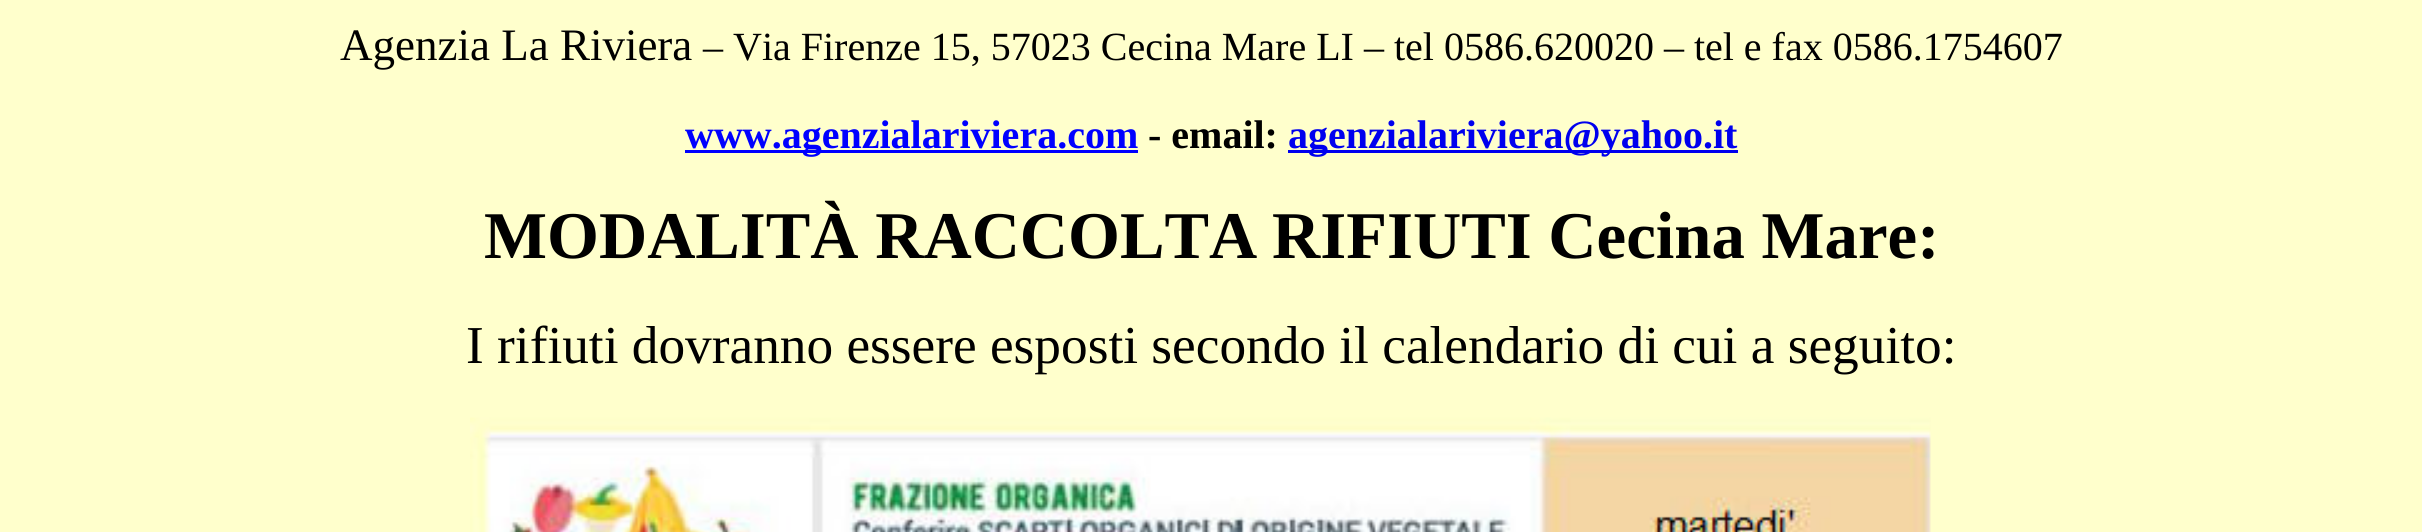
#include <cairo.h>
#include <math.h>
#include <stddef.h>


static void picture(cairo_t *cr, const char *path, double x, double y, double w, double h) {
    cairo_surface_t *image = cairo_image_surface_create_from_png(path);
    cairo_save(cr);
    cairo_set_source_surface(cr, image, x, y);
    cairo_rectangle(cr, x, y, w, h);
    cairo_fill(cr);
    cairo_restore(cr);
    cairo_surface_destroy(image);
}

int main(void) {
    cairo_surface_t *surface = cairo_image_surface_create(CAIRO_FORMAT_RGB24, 2422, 532);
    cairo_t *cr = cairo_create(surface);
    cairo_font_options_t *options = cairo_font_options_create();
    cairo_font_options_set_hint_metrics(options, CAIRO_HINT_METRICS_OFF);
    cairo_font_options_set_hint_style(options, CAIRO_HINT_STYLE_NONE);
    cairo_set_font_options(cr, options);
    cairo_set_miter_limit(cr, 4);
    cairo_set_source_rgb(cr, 1, 1, 0.8);
    cairo_paint(cr);
    cairo_select_font_face(cr, "Liberation Serif", CAIRO_FONT_SLANT_NORMAL, CAIRO_FONT_WEIGHT_NORMAL);
    cairo_set_font_size(cr, 45);
    cairo_set_source_rgb(cr, 0, 0, 0);
    cairo_move_to(cr, 340, 60);
    cairo_show_text(cr, "Agenzia La Riviera");
    cairo_set_font_size(cr, 40);
    cairo_move_to(cr, 703, 60);
    cairo_show_text(cr, "– Via Firenze 15, 57023 Cecina Mare LI – tel 0586.620020 – tel e fax 0586.1754607");
    cairo_set_source_rgb(cr, 0, 0, 1);
    cairo_rectangle(cr, 685, 150, 453, 3);
    cairo_fill(cr);
    cairo_select_font_face(cr, "Liberation Serif", CAIRO_FONT_SLANT_NORMAL, CAIRO_FONT_WEIGHT_BOLD);
    cairo_move_to(cr, 685, 148);
    cairo_show_text(cr, "www.agenzialariviera.com");
    cairo_set_source_rgb(cr, 0, 0, 0);
    cairo_move_to(cr, 1148, 148);
    cairo_show_text(cr, "- email:");
    cairo_set_source_rgb(cr, 0, 0, 0.933);
    cairo_rectangle(cr, 1288, 150, 450, 3);
    cairo_fill(cr);
    cairo_move_to(cr, 1288, 148);
    cairo_show_text(cr, "agenzialariviera@yahoo.it");
    cairo_set_font_size(cr, 66.75);
    cairo_set_source_rgb(cr, 0, 0, 0);
    cairo_move_to(cr, 484, 258);
    cairo_show_text(cr, "MODALITÀ RACCOLTA");
    cairo_move_to(cr, 1272, 258);
    cairo_show_text(cr, "RIFIUTI Cecina Mare:");
    cairo_select_font_face(cr, "Liberation Serif", CAIRO_FONT_SLANT_NORMAL, CAIRO_FONT_WEIGHT_NORMAL);
    cairo_set_font_size(cr, 53.3);
    cairo_move_to(cr, 466, 363);
    cairo_show_text(cr, "I rifiuti dovranno essere esposti secondo il calendario di cui a seguito:");
    picture(cr, "img1.png", 470, 417, 1461, 115);
    cairo_surface_write_to_png(surface, "page.png");
    cairo_font_options_destroy(options);
    cairo_destroy(cr);
    cairo_surface_destroy(surface);
    return 0;
}
